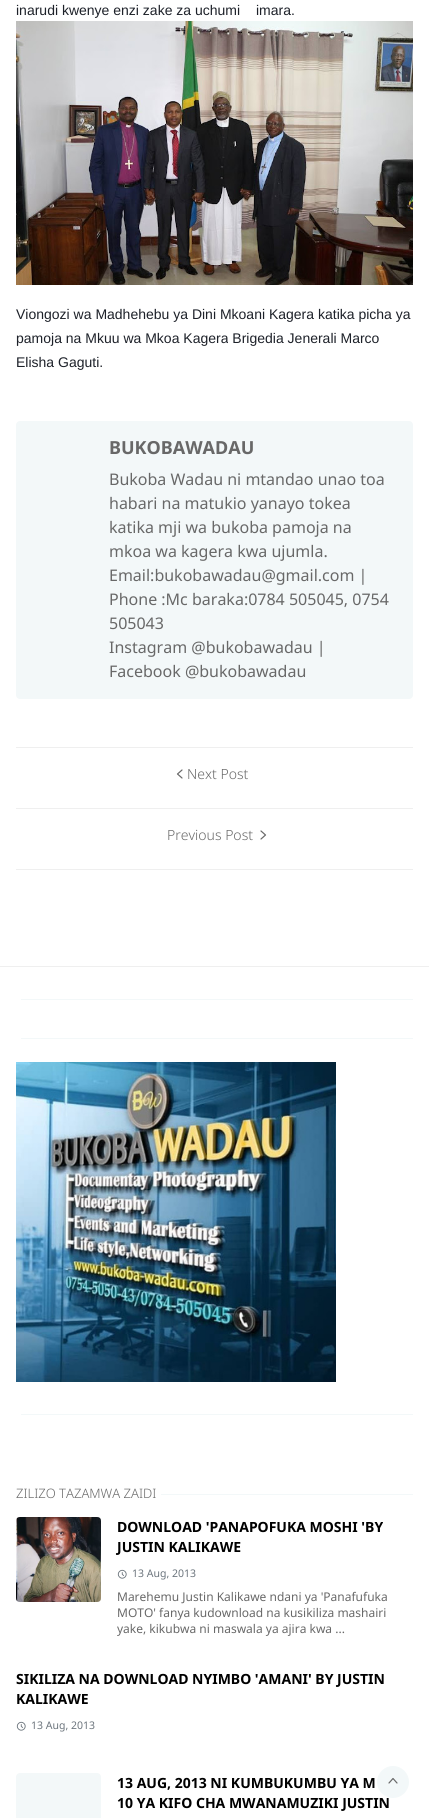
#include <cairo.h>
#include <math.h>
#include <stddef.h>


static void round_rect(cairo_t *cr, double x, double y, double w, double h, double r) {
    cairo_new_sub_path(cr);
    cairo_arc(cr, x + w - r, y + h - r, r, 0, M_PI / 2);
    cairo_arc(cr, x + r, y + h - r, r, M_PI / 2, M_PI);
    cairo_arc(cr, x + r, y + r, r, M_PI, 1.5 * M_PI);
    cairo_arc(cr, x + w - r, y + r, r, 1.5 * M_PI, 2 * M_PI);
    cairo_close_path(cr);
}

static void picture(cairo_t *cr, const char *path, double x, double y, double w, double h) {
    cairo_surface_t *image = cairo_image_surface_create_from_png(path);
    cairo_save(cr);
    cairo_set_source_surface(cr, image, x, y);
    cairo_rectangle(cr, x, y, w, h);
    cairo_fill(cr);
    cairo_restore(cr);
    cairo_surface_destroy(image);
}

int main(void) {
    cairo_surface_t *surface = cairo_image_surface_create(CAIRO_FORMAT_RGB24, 429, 1818);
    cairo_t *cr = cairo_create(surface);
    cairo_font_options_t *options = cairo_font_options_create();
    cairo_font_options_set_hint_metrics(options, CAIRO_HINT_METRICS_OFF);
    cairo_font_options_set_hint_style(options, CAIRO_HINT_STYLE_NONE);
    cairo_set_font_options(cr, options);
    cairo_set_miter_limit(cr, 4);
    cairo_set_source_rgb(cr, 1, 1, 1);
    cairo_paint(cr);
    cairo_select_font_face(cr, "Liberation Sans", CAIRO_FONT_SLANT_NORMAL, CAIRO_FONT_WEIGHT_NORMAL);
    cairo_set_font_size(cr, 14);
    cairo_set_source_rgb(cr, 0.114, 0.129, 0.161);
    cairo_move_to(cr, 16, 15);
    cairo_show_text(cr, "inarudi kwenye enzi zake za uchumi");
    cairo_move_to(cr, 256, 15);
    cairo_show_text(cr, "imara.");
    picture(cr, "img1.png", 16, 21, 397, 264);
    cairo_move_to(cr, 16, 319);
    cairo_show_text(cr, "Viongozi wa Madhehebu ya Dini Mkoani Kagera katika picha ya");
    cairo_move_to(cr, 16, 343);
    cairo_show_text(cr, "pamoja na Mkuu wa Mkoa Kagera Brigedia Jenerali Marco");
    cairo_move_to(cr, 16, 367);
    cairo_show_text(cr, "Elisha Gaguti.");
    cairo_set_source_rgb(cr, 1, 1, 1);
    cairo_rectangle(cr, 228, 342, 1, 1);
    cairo_fill(cr);
    cairo_set_source_rgb(cr, 0.953, 0.969, 0.976);
    round_rect(cr, 16, 421, 397, 278, 4);
    cairo_fill(cr);
    cairo_select_font_face(cr, "Noto Sans", CAIRO_FONT_SLANT_NORMAL, CAIRO_FONT_WEIGHT_BOLD);
    cairo_set_font_size(cr, 18);
    cairo_set_source_rgb(cr, 0.408, 0.408, 0.408);
    cairo_move_to(cr, 109, 454);
    cairo_show_text(cr, "BUKOBAWADAU");
    cairo_select_font_face(cr, "Noto Sans", CAIRO_FONT_SLANT_NORMAL, CAIRO_FONT_WEIGHT_NORMAL);
    cairo_set_font_size(cr, 16);
    cairo_move_to(cr, 109, 485);
    cairo_show_text(cr, "Bukoba Wadau ni mtandao unao toa");
    cairo_move_to(cr, 109, 509);
    cairo_show_text(cr, "habari na matukio yanayo tokea");
    cairo_move_to(cr, 109, 533);
    cairo_show_text(cr, "katika mji wa bukoba pamoja na");
    cairo_move_to(cr, 109, 557);
    cairo_show_text(cr, "mkoa wa kagera kwa ujumla.");
    cairo_move_to(cr, 109, 581);
    cairo_show_text(cr, "Email:bukobawadau@gmail.com |");
    cairo_move_to(cr, 109, 605);
    cairo_show_text(cr, "Phone :Mc baraka:0784 505045, 0754");
    cairo_move_to(cr, 109, 629);
    cairo_show_text(cr, "505043");
    cairo_move_to(cr, 109, 653);
    cairo_show_text(cr, "Instagram @bukobawadau |");
    cairo_move_to(cr, 109, 677);
    cairo_show_text(cr, "Facebook @bukobawadau");
    cairo_set_source_rgb(cr, 0.937, 0.937, 0.937);
    cairo_rectangle(cr, 16, 747, 397, 1);
    cairo_fill(cr);
    cairo_rectangle(cr, 16, 869, 397, 1);
    cairo_fill(cr);
    cairo_new_path(cr);
    cairo_move_to(cr, 182, 778);
    cairo_line_to(cr, 177.5, 774);
    cairo_line_to(cr, 182, 770);
    cairo_set_source_rgb(cr, 0.408, 0.408, 0.408);
    cairo_set_line_width(cr, 1.2);
    cairo_set_line_cap(cr, CAIRO_LINE_CAP_ROUND);
    cairo_set_line_join(cr, CAIRO_LINE_JOIN_ROUND);
    cairo_stroke(cr);
    cairo_select_font_face(cr, "Noto Sans Light", CAIRO_FONT_SLANT_NORMAL, CAIRO_FONT_WEIGHT_NORMAL);
    cairo_set_font_size(cr, 14);
    cairo_move_to(cr, 187, 779);
    cairo_show_text(cr, "Next Post");
    cairo_set_source_rgb(cr, 0.937, 0.937, 0.937);
    cairo_rectangle(cr, 16, 808, 397, 1);
    cairo_fill(cr);
    cairo_set_source_rgb(cr, 0.408, 0.408, 0.408);
    cairo_move_to(cr, 167, 840);
    cairo_show_text(cr, "Previous Post");
    cairo_new_path(cr);
    cairo_move_to(cr, 261, 831);
    cairo_line_to(cr, 265.5, 835);
    cairo_line_to(cr, 261, 839);
    cairo_stroke(cr);
    cairo_set_source_rgb(cr, 0.937, 0.937, 0.937);
    cairo_rectangle(cr, 0, 966, 429, 1);
    cairo_fill(cr);
    cairo_set_source_rgb(cr, 0.953, 0.969, 0.976);
    cairo_rectangle(cr, 16, 999, 397, 1);
    cairo_fill(cr);
    cairo_set_source_rgb(cr, 1, 1, 1);
    cairo_rectangle(cr, 16, 999, 5, 8);
    cairo_fill(cr);
    cairo_set_source_rgb(cr, 0.953, 0.969, 0.976);
    cairo_rectangle(cr, 16, 1038, 397, 1);
    cairo_fill(cr);
    cairo_set_source_rgb(cr, 1, 1, 1);
    cairo_rectangle(cr, 16, 1038, 5, 9);
    cairo_fill(cr);
    picture(cr, "img2.png", 16, 1062, 320, 320);
    cairo_set_source_rgb(cr, 0.953, 0.969, 0.976);
    cairo_rectangle(cr, 16, 1414, 397, 1);
    cairo_fill(cr);
    cairo_set_source_rgb(cr, 1, 1, 1);
    cairo_rectangle(cr, 16, 1414, 5, 8);
    cairo_fill(cr);
    cairo_set_font_size(cr, 13);
    cairo_set_source_rgb(cr, 0.408, 0.408, 0.408);
    cairo_move_to(cr, 16, 1498);
    cairo_show_text(cr, "ZILIZO TAZAMWA ZAIDI");
    cairo_set_source_rgb(cr, 0.953, 0.969, 0.976);
    cairo_rectangle(cr, 161, 1494, 252, 1);
    cairo_fill(cr);
    picture(cr, "img3.png", 16, 1517, 85, 85);
    cairo_select_font_face(cr, "Noto Sans", CAIRO_FONT_SLANT_NORMAL, CAIRO_FONT_WEIGHT_BOLD);
    cairo_set_font_size(cr, 14);
    cairo_set_source_rgb(cr, 0, 0, 0);
    cairo_move_to(cr, 117, 1532);
    cairo_show_text(cr, "DOWNLOAD 'PANAPOFUKA MOSHI 'BY");
    cairo_move_to(cr, 117, 1552);
    cairo_show_text(cr, "JUSTIN KALIKAWE");
    picture(cr, "img4.png", 117, 1569, 10, 10);
    cairo_select_font_face(cr, "Noto Sans", CAIRO_FONT_SLANT_NORMAL, CAIRO_FONT_WEIGHT_NORMAL);
    cairo_set_font_size(cr, 10.5);
    cairo_set_source_rgb(cr, 0.424, 0.459, 0.49);
    cairo_move_to(cr, 132, 1577);
    cairo_show_text(cr, "13 Aug, 2013");
    cairo_set_font_size(cr, 12);
    cairo_set_source_rgb(cr, 0.408, 0.408, 0.408);
    cairo_move_to(cr, 117, 1601);
    cairo_show_text(cr, "Marehemu Justin Kalikawe ndani ya 'Panafufuka");
    cairo_move_to(cr, 117, 1617);
    cairo_show_text(cr, "MOTO' fanya kudownload na kusikiliza mashairi");
    cairo_move_to(cr, 117, 1633);
    cairo_show_text(cr, "yake, kikubwa ni maswala ya ajira kwa ...");
    cairo_select_font_face(cr, "Noto Sans", CAIRO_FONT_SLANT_NORMAL, CAIRO_FONT_WEIGHT_BOLD);
    cairo_set_font_size(cr, 14);
    cairo_set_source_rgb(cr, 0, 0, 0);
    cairo_move_to(cr, 16, 1684);
    cairo_show_text(cr, "SIKILIZA NA DOWNLOAD NYIMBO 'AMANI' BY JUSTIN");
    cairo_move_to(cr, 16, 1704);
    cairo_show_text(cr, "KALIKAWE");
    picture(cr, "img4.png", 16, 1721, 10, 10);
    cairo_select_font_face(cr, "Noto Sans", CAIRO_FONT_SLANT_NORMAL, CAIRO_FONT_WEIGHT_NORMAL);
    cairo_set_font_size(cr, 10.5);
    cairo_set_source_rgb(cr, 0.424, 0.459, 0.49);
    cairo_move_to(cr, 31, 1729);
    cairo_show_text(cr, "13 Aug, 2013");
    cairo_set_source_rgb(cr, 0.953, 0.969, 0.976);
    round_rect(cr, 16, 1773, 85, 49, 4);
    cairo_fill(cr);
    cairo_select_font_face(cr, "Noto Sans", CAIRO_FONT_SLANT_NORMAL, CAIRO_FONT_WEIGHT_BOLD);
    cairo_set_font_size(cr, 14);
    cairo_set_source_rgb(cr, 0, 0, 0);
    cairo_move_to(cr, 117, 1788);
    cairo_show_text(cr, "13 AUG, 2013 NI KUMBUKUMBU YA M");
    cairo_move_to(cr, 117, 1808);
    cairo_show_text(cr, "10 YA KIFO CHA MWANAMUZIKI JUSTIN");
    cairo_set_source_rgb(cr, 0.953, 0.969, 0.976);
    cairo_new_path(cr);
    cairo_arc(cr, 393, 1782, 15.5, 0, 2 * M_PI);
    cairo_fill_preserve(cr);
    cairo_set_line_width(cr, 1);
    cairo_set_line_cap(cr, CAIRO_LINE_CAP_BUTT);
    cairo_set_line_join(cr, CAIRO_LINE_JOIN_MITER);
    cairo_stroke(cr);
    cairo_new_path(cr);
    cairo_move_to(cr, 389, 1783);
    cairo_line_to(cr, 393, 1778.5);
    cairo_line_to(cr, 397, 1783);
    cairo_set_source_rgb(cr, 0.408, 0.408, 0.408);
    cairo_set_line_width(cr, 1.2);
    cairo_set_line_cap(cr, CAIRO_LINE_CAP_ROUND);
    cairo_set_line_join(cr, CAIRO_LINE_JOIN_ROUND);
    cairo_stroke(cr);
    cairo_surface_write_to_png(surface, "page.png");
    cairo_font_options_destroy(options);
    cairo_destroy(cr);
    cairo_surface_destroy(surface);
    return 0;
}
